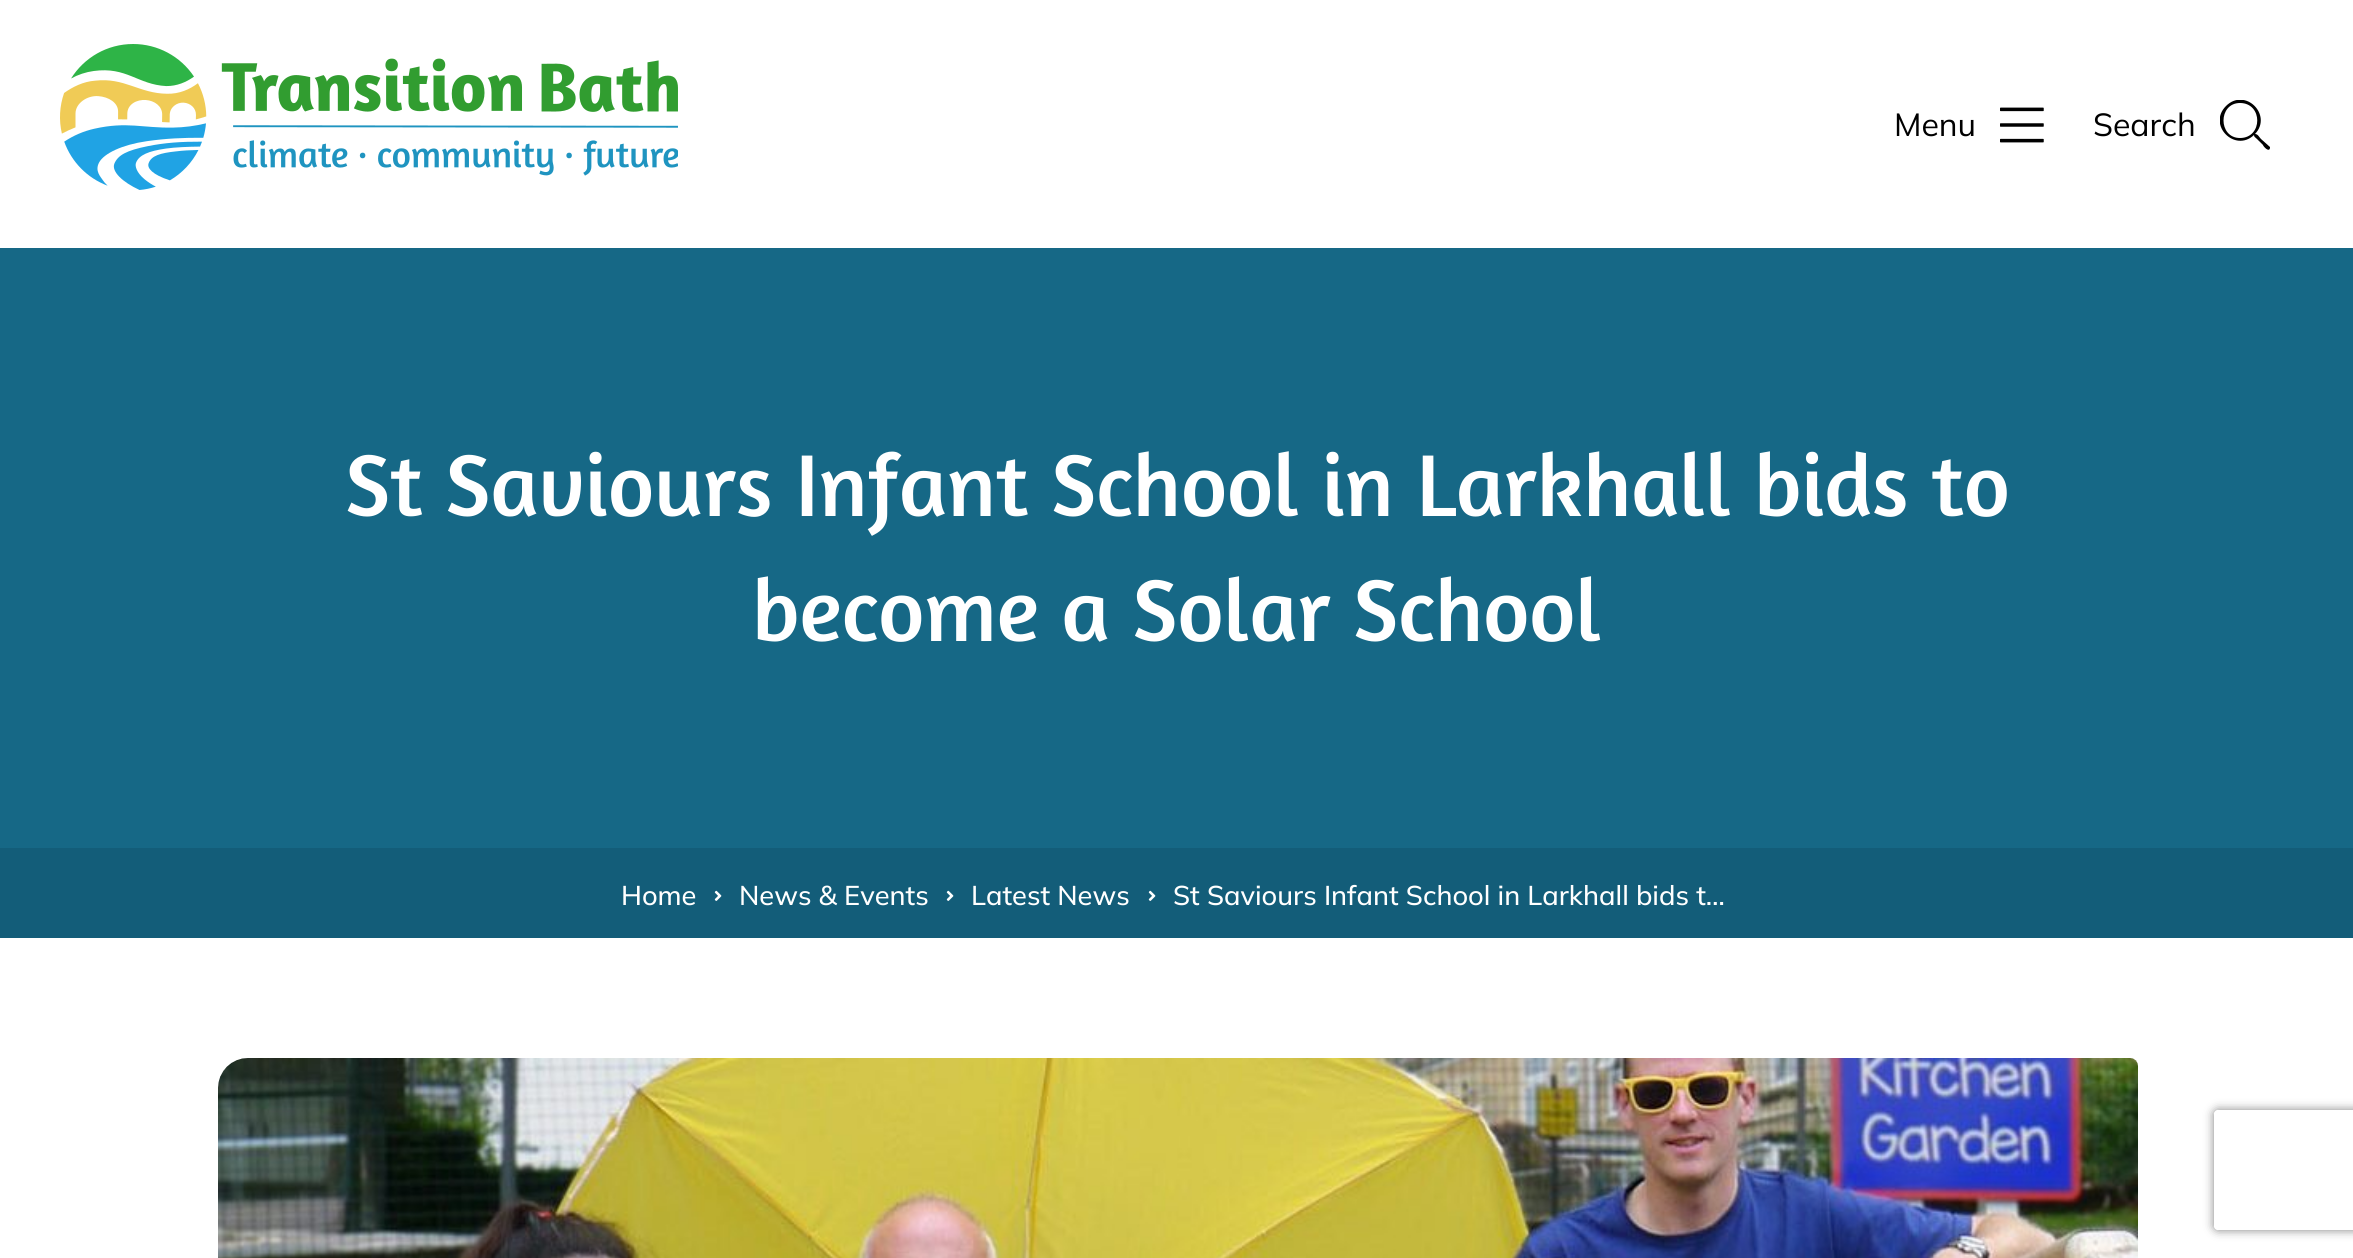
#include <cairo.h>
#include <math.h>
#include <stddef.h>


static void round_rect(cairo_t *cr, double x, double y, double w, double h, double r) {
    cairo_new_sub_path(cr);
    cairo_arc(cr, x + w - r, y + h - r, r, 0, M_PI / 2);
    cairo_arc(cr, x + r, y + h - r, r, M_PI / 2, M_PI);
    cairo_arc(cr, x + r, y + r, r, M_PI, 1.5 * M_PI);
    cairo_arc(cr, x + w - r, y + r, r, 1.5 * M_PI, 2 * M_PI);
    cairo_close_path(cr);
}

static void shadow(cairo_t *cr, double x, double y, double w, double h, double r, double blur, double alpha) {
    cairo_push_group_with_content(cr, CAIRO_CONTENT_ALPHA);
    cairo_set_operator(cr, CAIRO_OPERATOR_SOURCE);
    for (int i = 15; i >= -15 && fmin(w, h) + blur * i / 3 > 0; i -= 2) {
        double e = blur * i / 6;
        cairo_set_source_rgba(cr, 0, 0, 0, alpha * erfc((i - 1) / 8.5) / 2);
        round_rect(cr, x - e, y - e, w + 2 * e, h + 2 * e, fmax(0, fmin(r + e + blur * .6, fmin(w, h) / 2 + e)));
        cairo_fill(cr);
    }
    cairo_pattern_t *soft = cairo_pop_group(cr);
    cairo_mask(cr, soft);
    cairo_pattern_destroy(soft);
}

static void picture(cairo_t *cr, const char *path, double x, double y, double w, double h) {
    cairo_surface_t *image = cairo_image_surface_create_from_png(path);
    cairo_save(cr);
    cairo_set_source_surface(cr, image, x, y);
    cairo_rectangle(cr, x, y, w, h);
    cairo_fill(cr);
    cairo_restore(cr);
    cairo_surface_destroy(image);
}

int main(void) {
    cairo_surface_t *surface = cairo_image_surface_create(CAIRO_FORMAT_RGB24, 2353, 1258);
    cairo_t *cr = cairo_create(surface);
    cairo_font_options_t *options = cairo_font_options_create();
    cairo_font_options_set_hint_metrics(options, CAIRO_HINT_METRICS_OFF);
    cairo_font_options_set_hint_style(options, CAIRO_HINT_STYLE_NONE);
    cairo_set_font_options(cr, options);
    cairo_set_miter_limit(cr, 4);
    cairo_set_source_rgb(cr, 1, 1, 1);
    cairo_paint(cr);
    picture(cr, "img1.png", 60, 44, 618, 146);
    cairo_select_font_face(cr, "Mulish", CAIRO_FONT_SLANT_NORMAL, CAIRO_FONT_WEIGHT_NORMAL);
    cairo_set_font_size(cr, 32);
    cairo_set_source_rgb(cr, 0, 0, 0);
    cairo_move_to(cr, 1894, 136);
    cairo_show_text(cr, "Menu");
    picture(cr, "img2.png", 2000, 107, 44, 36);
    cairo_move_to(cr, 2093, 136);
    cairo_show_text(cr, "Search");
    cairo_save(cr);
    cairo_rectangle(cr, 2220, 100, 50, 50);
    cairo_clip(cr);
    cairo_new_path(cr);
    cairo_move_to(cr, 2270, 147);
    cairo_line_to(cr, 2261, 139);
    cairo_curve_to(cr, 2259, 137, 2258, 134, 2255, 134);
    cairo_curve_to(cr, 2273, 115, 2245, 87, 2226, 106);
    cairo_curve_to(cr, 2207, 125, 2235, 153, 2254, 135);
    cairo_curve_to(cr, 2254, 137, 2255, 137, 2257, 139);
    cairo_line_to(cr, 2263, 145);
    cairo_curve_to(cr, 2263, 146, 2269, 153, 2270, 148);
    cairo_close_path(cr);
    cairo_move_to(cr, 2240, 138);
    cairo_curve_to(cr, 2218, 138, 2218, 103, 2240, 103);
    cairo_curve_to(cr, 2263, 103, 2263, 138, 2240, 138);
    cairo_close_path(cr);
    cairo_fill(cr);
    cairo_restore(cr);
    cairo_set_source_rgb(cr, 0.086, 0.408, 0.525);
    cairo_rectangle(cr, 0, 248, 2353, 600);
    cairo_fill(cr);
    cairo_select_font_face(cr, "Amaranth", CAIRO_FONT_SLANT_NORMAL, CAIRO_FONT_WEIGHT_NORMAL);
    cairo_set_font_size(cr, 89.25);
    cairo_set_source_rgb(cr, 1, 1, 1);
    cairo_move_to(cr, 345, 516);
    cairo_show_text(cr, "St Saviours Infant School in Larkhall bids to");
    cairo_move_to(cr, 752, 641);
    cairo_show_text(cr, "become a Solar School");
    cairo_set_source_rgb(cr, 0.078, 0.365, 0.475);
    cairo_rectangle(cr, 0, 848, 2353, 90);
    cairo_fill(cr);
    cairo_select_font_face(cr, "Mulish Medium", CAIRO_FONT_SLANT_NORMAL, CAIRO_FONT_WEIGHT_NORMAL);
    cairo_set_font_size(cr, 27.2);
    cairo_set_source_rgb(cr, 1, 1, 1);
    cairo_move_to(cr, 621, 905);
    cairo_show_text(cr, "Home");
    picture(cr, "img3.png", 714, 890, 8, 11);
    cairo_move_to(cr, 739, 905);
    cairo_show_text(cr, "News & Events");
    picture(cr, "img3.png", 946, 890, 8, 11);
    cairo_move_to(cr, 971, 905);
    cairo_show_text(cr, "Latest News");
    picture(cr, "img3.png", 1148, 890, 8, 11);
    cairo_move_to(cr, 1173, 905);
    cairo_show_text(cr, "St Saviours Infant School in Larkhall bids t…");
    picture(cr, "img4.png", 218, 1058, 1920, 200);
    cairo_save(cr);
    cairo_set_fill_rule(cr, CAIRO_FILL_RULE_EVEN_ODD);
    cairo_new_path(cr);
    cairo_move_to(cr, 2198, 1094);
    cairo_line_to(cr, 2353, 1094);
    cairo_line_to(cr, 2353, 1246);
    cairo_line_to(cr, 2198, 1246);
    cairo_close_path(cr);
    cairo_move_to(cr, 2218, 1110);
    cairo_line_to(cr, 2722, 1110);
    cairo_curve_to(cr, 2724, 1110, 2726, 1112, 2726, 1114);
    cairo_line_to(cr, 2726, 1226);
    cairo_curve_to(cr, 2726, 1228, 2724, 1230, 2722, 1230);
    cairo_line_to(cr, 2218, 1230);
    cairo_curve_to(cr, 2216, 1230, 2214, 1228, 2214, 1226);
    cairo_line_to(cr, 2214, 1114);
    cairo_curve_to(cr, 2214, 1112, 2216, 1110, 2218, 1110);
    cairo_close_path(cr);
    cairo_clip(cr);
    cairo_set_source_rgb(cr, 0.502, 0.502, 0.502);
    shadow(cr, 2214, 1110, 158, 120, 4, 5, 1);
    cairo_restore(cr);
    cairo_surface_write_to_png(surface, "page.png");
    cairo_font_options_destroy(options);
    cairo_destroy(cr);
    cairo_surface_destroy(surface);
    return 0;
}
